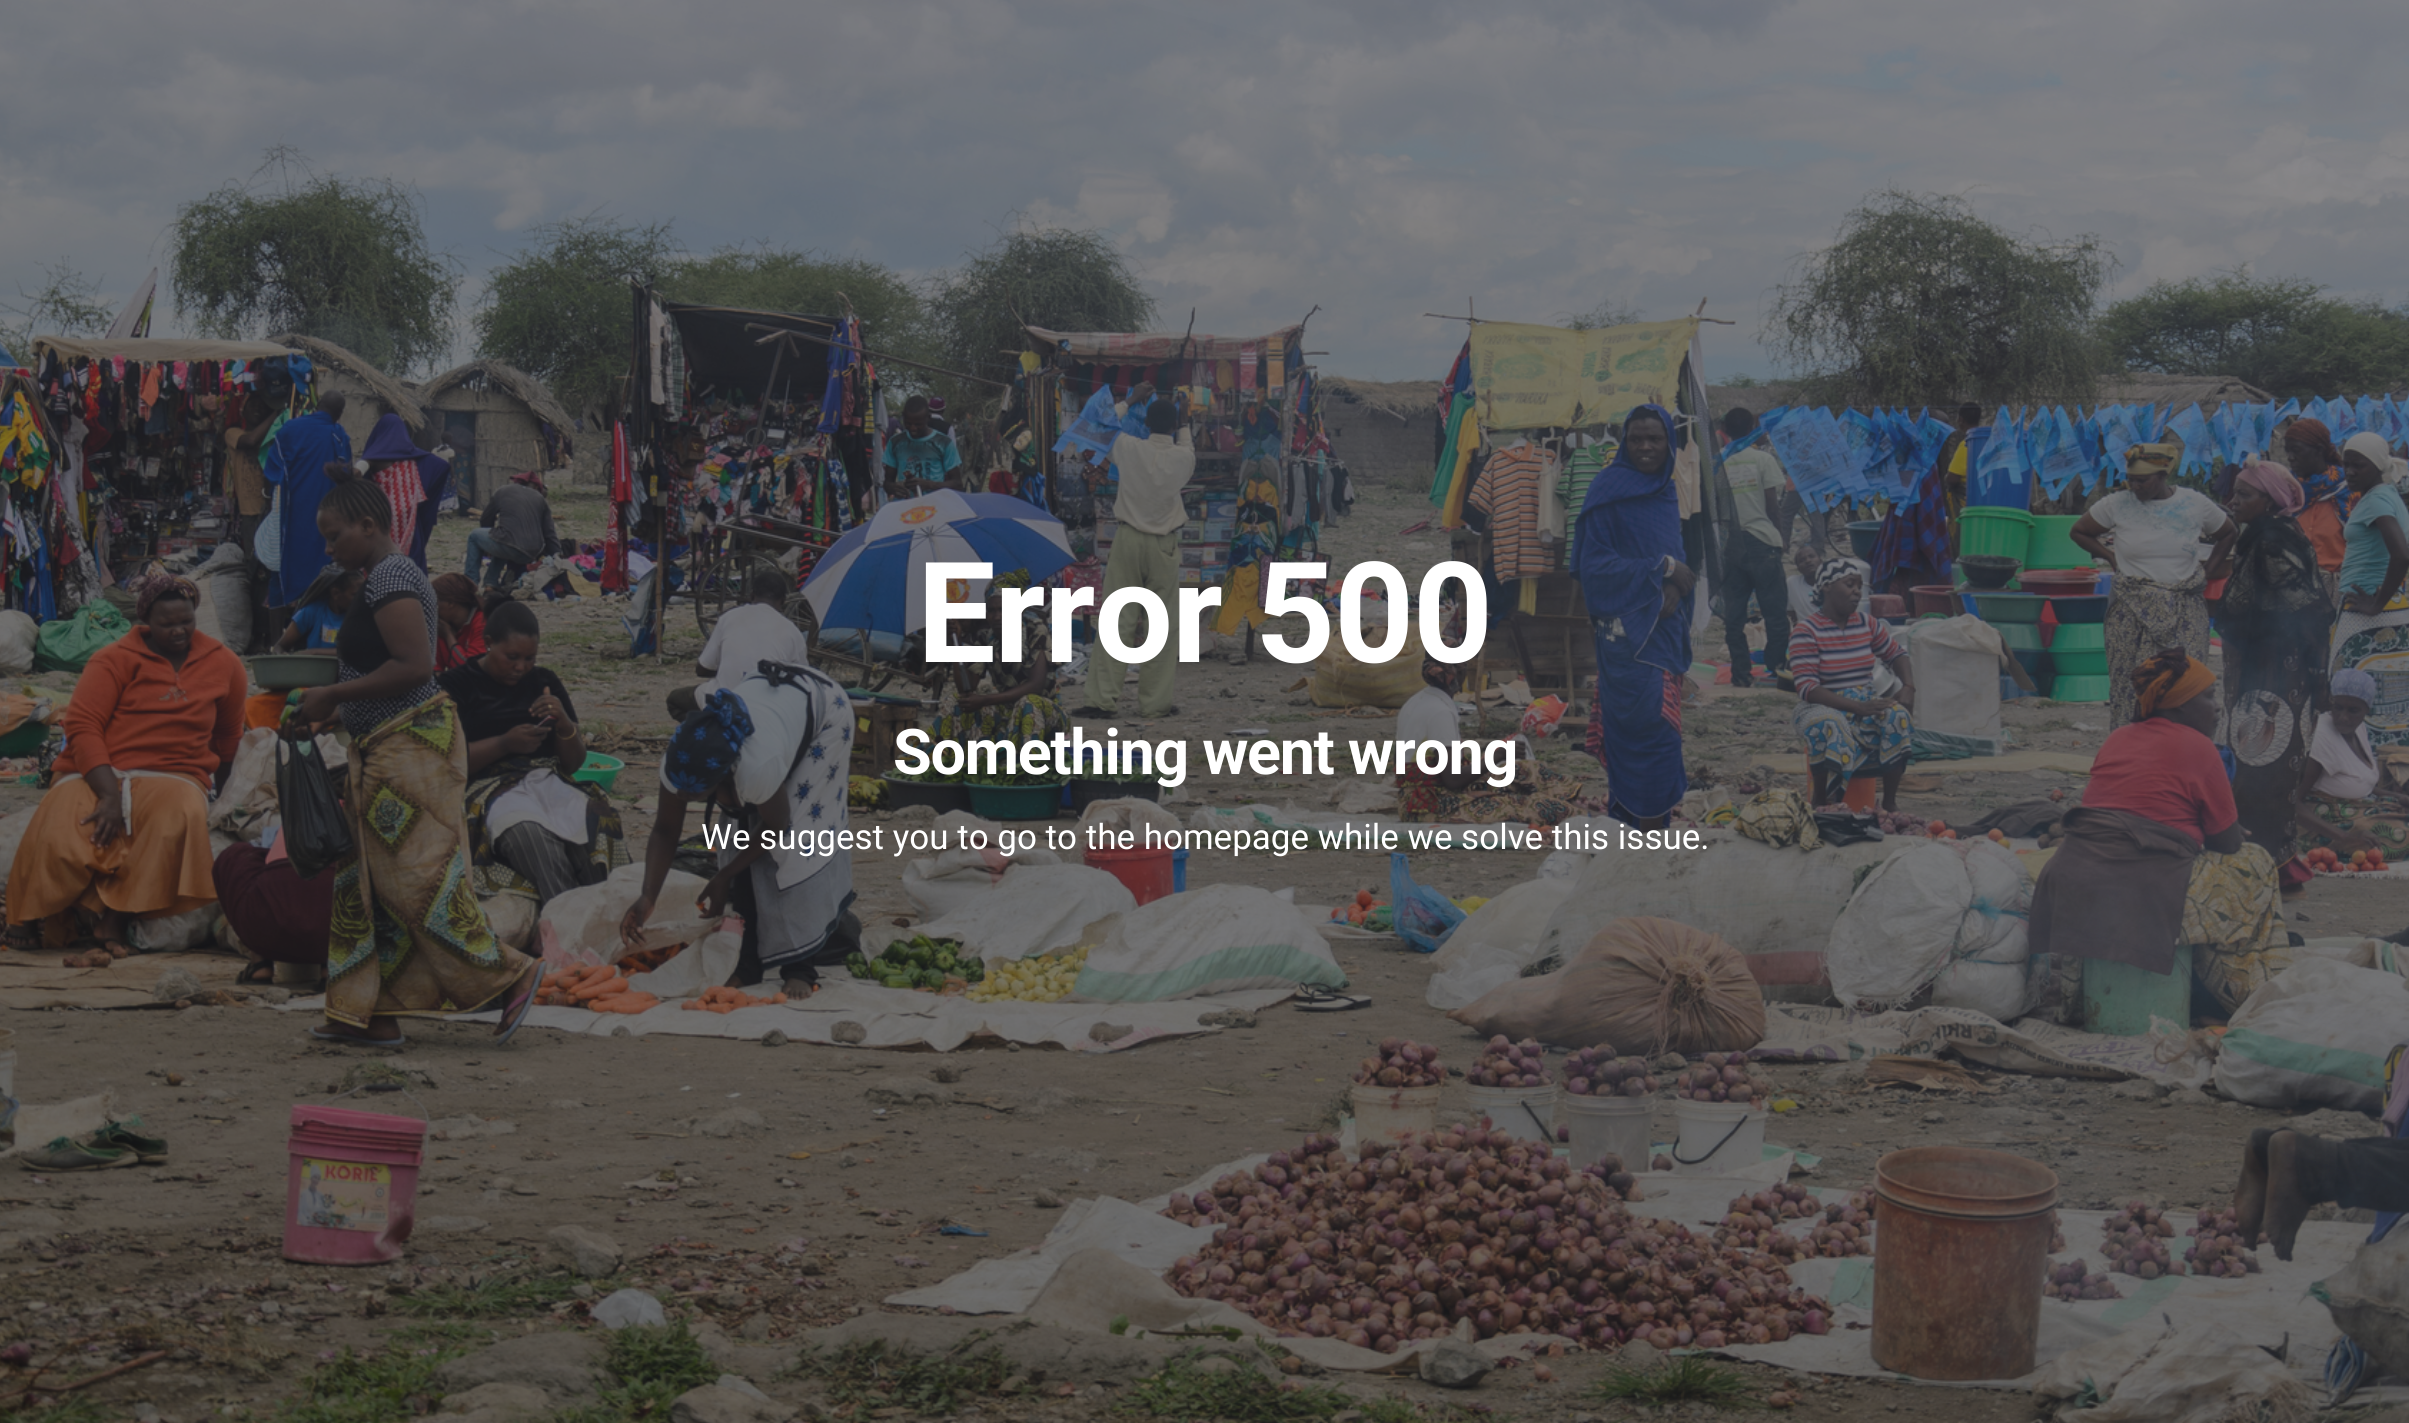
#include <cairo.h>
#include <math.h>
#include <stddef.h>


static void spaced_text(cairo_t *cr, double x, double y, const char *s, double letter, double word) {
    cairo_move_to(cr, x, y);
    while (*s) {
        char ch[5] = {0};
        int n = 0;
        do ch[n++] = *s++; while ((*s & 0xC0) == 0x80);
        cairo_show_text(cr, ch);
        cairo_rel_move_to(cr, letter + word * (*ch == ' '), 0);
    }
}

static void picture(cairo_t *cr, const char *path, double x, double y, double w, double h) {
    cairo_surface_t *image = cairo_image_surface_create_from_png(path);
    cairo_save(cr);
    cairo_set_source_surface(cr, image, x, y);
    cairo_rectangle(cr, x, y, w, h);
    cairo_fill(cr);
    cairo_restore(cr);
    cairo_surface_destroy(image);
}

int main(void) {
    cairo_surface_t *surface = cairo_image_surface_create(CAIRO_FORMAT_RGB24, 2409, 1423);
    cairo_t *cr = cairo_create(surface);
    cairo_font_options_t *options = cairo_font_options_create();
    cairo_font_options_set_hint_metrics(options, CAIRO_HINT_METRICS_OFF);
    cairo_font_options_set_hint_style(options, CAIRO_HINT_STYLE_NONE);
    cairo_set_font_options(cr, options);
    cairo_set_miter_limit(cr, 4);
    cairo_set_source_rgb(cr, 1, 1, 1);
    cairo_paint(cr);
    picture(cr, "img1.png", 0, 0, 2409, 1423);
    cairo_select_font_face(cr, "Roboto", CAIRO_FONT_SLANT_NORMAL, CAIRO_FONT_WEIGHT_BOLD);
    cairo_set_font_size(cr, 140);
    cairo_set_source_rgb(cr, 1, 1, 1);
    spaced_text(cr, 917, 662, "Error 500", -1.4, 0);
    cairo_set_font_size(cr, 63);
    spaced_text(cr, 893, 774, "Something went wrong", -1.4, 0);
    cairo_select_font_face(cr, "Roboto", CAIRO_FONT_SLANT_NORMAL, CAIRO_FONT_WEIGHT_NORMAL);
    cairo_set_font_size(cr, 35);
    cairo_move_to(cr, 701, 849);
    cairo_show_text(cr, "We suggest you to go to the homepage while we solve this issue.");
    cairo_surface_write_to_png(surface, "page.png");
    cairo_font_options_destroy(options);
    cairo_destroy(cr);
    cairo_surface_destroy(surface);
    return 0;
}
